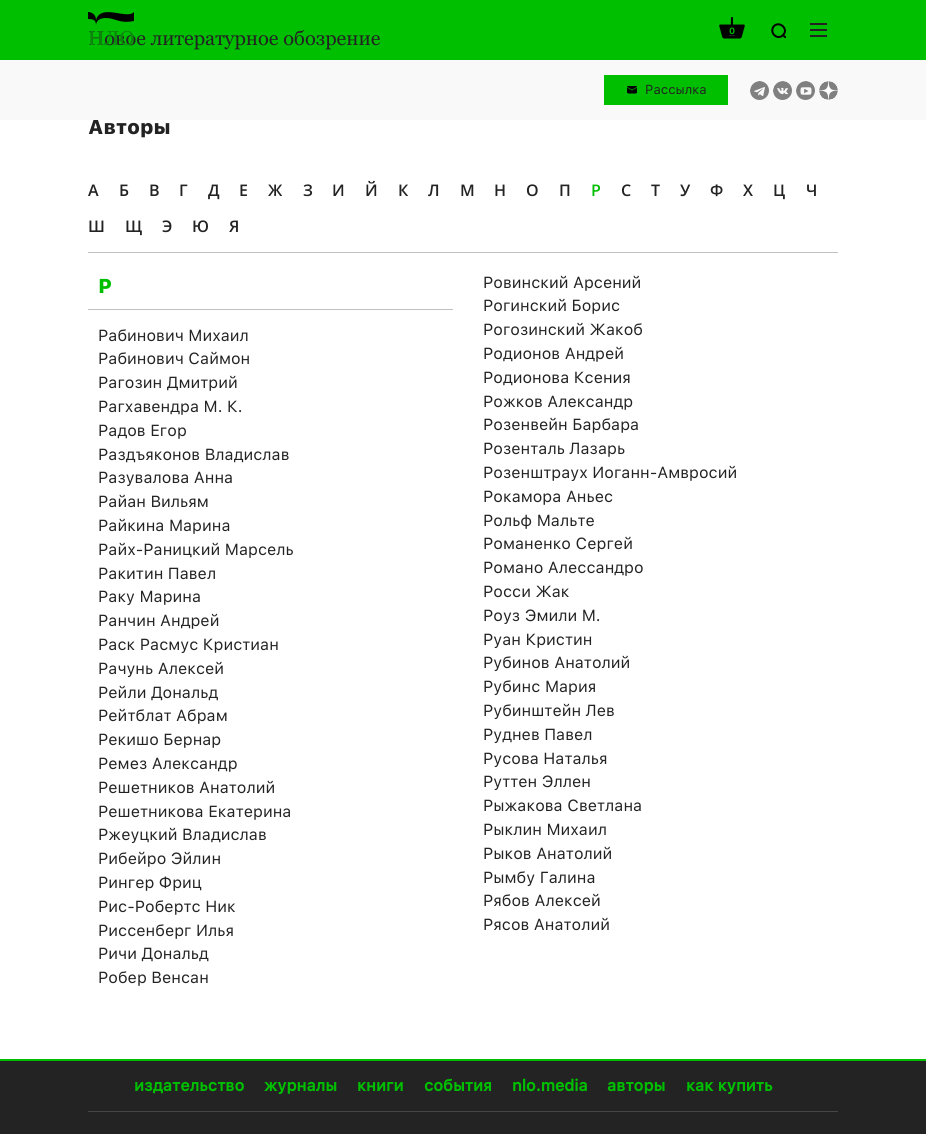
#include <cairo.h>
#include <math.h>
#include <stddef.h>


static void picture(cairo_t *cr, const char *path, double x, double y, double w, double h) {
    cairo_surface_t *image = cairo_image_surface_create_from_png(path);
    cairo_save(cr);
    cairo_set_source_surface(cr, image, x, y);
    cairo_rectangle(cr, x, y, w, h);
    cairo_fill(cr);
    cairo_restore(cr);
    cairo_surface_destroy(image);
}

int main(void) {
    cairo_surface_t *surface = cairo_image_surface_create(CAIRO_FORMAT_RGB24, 926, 1134);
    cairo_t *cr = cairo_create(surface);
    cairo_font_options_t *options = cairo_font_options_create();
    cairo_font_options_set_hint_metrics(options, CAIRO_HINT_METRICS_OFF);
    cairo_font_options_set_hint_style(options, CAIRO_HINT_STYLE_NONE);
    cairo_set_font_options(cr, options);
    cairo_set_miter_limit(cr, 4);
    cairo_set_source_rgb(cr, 1, 1, 1);
    cairo_paint(cr);
    cairo_set_source_rgb(cr, 0, 0.745, 0);
    cairo_rectangle(cr, 0, 0, 926, 60);
    cairo_fill(cr);
    cairo_set_source_rgb(cr, 0, 0, 0);
    cairo_new_path(cr);
    cairo_move_to(cr, 134, 21);
    cairo_curve_to(cr, 119, 24, 116, 18, 106, 18);
    cairo_curve_to(cr, 95, 18, 96, 26, 96, 26);
    cairo_curve_to(cr, 96, 21, 95, 19, 88, 19);
    cairo_line_to(cr, 88, 12);
    cairo_curve_to(cr, 91, 12, 96, 14, 96, 20);
    cairo_curve_to(cr, 101, 3, 127, 20, 134, 12);
    cairo_close_path(cr);
    cairo_fill(cr);
    cairo_select_font_face(cr, "Georgia", CAIRO_FONT_SLANT_NORMAL, CAIRO_FONT_WEIGHT_NORMAL);
    cairo_set_font_size(cr, 20);
    cairo_set_source_rgb(cr, 0.137, 0.137, 0.137);
    cairo_move_to(cr, 88, 45);
    cairo_show_text(cr, "Новое литературное обозрение");
    cairo_set_source_rgb(cr, 0.047, 0.529, 0.047);
    cairo_move_to(cr, 88, 45);
    cairo_show_text(cr, "НЛО");
    picture(cr, "img1.png", 719, 17, 26, 22);
    cairo_select_font_face(cr, "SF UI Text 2", CAIRO_FONT_SLANT_NORMAL, CAIRO_FONT_WEIGHT_BOLD);
    cairo_set_font_size(cr, 9);
    cairo_set_source_rgb(cr, 0, 0.745, 0);
    cairo_move_to(cr, 729, 34);
    cairo_show_text(cr, "0");
    cairo_set_source_rgb(cr, 0.137, 0.137, 0.137);
    cairo_rectangle(cr, 729, 35, 6, 1);
    cairo_fill(cr);
    cairo_save(cr);
    cairo_rectangle(cr, 770, 22, 16, 16);
    cairo_clip(cr);
    cairo_new_path(cr);
    cairo_move_to(cr, 786.5, 38.5);
    cairo_line_to(cr, 783, 35);
    cairo_move_to(cr, 783, 35);
    cairo_curve_to(cr, 789, 29.5, 780, 20.5, 774, 26);
    cairo_curve_to(cr, 768.5, 32.5, 777.5, 41, 783, 35);
    cairo_close_path(cr);
    cairo_set_source_rgb(cr, 0, 0, 0);
    cairo_set_line_cap(cr, CAIRO_LINE_CAP_ROUND);
    cairo_set_line_join(cr, CAIRO_LINE_JOIN_ROUND);
    cairo_stroke(cr);
    cairo_restore(cr);
    picture(cr, "img2.png", 810, 23, 17, 14);
    cairo_select_font_face(cr, "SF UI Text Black", CAIRO_FONT_SLANT_NORMAL, CAIRO_FONT_WEIGHT_NORMAL);
    cairo_set_font_size(cr, 20);
    cairo_move_to(cr, 88, 134);
    cairo_show_text(cr, "Авторы");
    cairo_set_source_rgb(cr, 0.973, 0.973, 0.973);
    cairo_rectangle(cr, 0, 60, 926, 60);
    cairo_fill(cr);
    cairo_set_source_rgb(cr, 0, 0.745, 0);
    cairo_rectangle(cr, 604, 75, 124, 30);
    cairo_fill(cr);
    picture(cr, "img3.png", 627, 86, 10, 8);
    cairo_select_font_face(cr, "SF UI Text", CAIRO_FONT_SLANT_NORMAL, CAIRO_FONT_WEIGHT_NORMAL);
    cairo_set_font_size(cr, 13);
    cairo_set_source_rgb(cr, 0.137, 0.137, 0.137);
    cairo_move_to(cr, 645, 94);
    cairo_show_text(cr, "Рассылка");
    picture(cr, "img4.png", 750, 81, 19, 19);
    picture(cr, "img5.png", 773, 81, 19, 19);
    picture(cr, "img6.png", 796, 81, 19, 19);
    picture(cr, "img7.png", 819, 81, 19, 19);
    cairo_set_source_rgb(cr, 0.753, 0.753, 0.753);
    cairo_rectangle(cr, 88, 252, 750, 1);
    cairo_fill(cr);
    cairo_select_font_face(cr, "Open Sans SemiBold", CAIRO_FONT_SLANT_NORMAL, CAIRO_FONT_WEIGHT_NORMAL);
    cairo_set_font_size(cr, 16);
    cairo_set_source_rgb(cr, 0.137, 0.137, 0.137);
    cairo_move_to(cr, 88, 196);
    cairo_show_text(cr, "А");
    cairo_move_to(cr, 119, 196);
    cairo_show_text(cr, "Б");
    cairo_move_to(cr, 149, 196);
    cairo_show_text(cr, "В");
    cairo_move_to(cr, 179, 196);
    cairo_show_text(cr, "Г");
    cairo_move_to(cr, 208, 196);
    cairo_show_text(cr, "Д");
    cairo_move_to(cr, 239, 196);
    cairo_show_text(cr, "Е");
    cairo_move_to(cr, 268, 196);
    cairo_show_text(cr, "Ж");
    cairo_move_to(cr, 303, 196);
    cairo_show_text(cr, "З");
    cairo_move_to(cr, 332, 196);
    cairo_show_text(cr, "И");
    cairo_move_to(cr, 365, 196);
    cairo_show_text(cr, "Й");
    cairo_move_to(cr, 398, 196);
    cairo_show_text(cr, "К");
    cairo_move_to(cr, 428, 196);
    cairo_show_text(cr, "Л");
    cairo_move_to(cr, 460, 196);
    cairo_show_text(cr, "М");
    cairo_move_to(cr, 494, 196);
    cairo_show_text(cr, "Н");
    cairo_move_to(cr, 526, 196);
    cairo_show_text(cr, "О");
    cairo_move_to(cr, 559, 196);
    cairo_show_text(cr, "П");
    cairo_set_source_rgb(cr, 0, 0.745, 0);
    cairo_move_to(cr, 591, 196);
    cairo_show_text(cr, "Р");
    cairo_set_source_rgb(cr, 0.137, 0.137, 0.137);
    cairo_move_to(cr, 621, 196);
    cairo_show_text(cr, "С");
    cairo_move_to(cr, 651, 196);
    cairo_show_text(cr, "Т");
    cairo_move_to(cr, 680, 196);
    cairo_show_text(cr, "У");
    cairo_move_to(cr, 710, 196);
    cairo_show_text(cr, "Ф");
    cairo_move_to(cr, 743, 196);
    cairo_show_text(cr, "Х");
    cairo_move_to(cr, 773, 196);
    cairo_show_text(cr, "Ц");
    cairo_move_to(cr, 806, 196);
    cairo_show_text(cr, "Ч");
    cairo_move_to(cr, 88, 232);
    cairo_show_text(cr, "Ш");
    cairo_move_to(cr, 125, 232);
    cairo_show_text(cr, "Щ");
    cairo_move_to(cr, 162, 232);
    cairo_show_text(cr, "Э");
    cairo_move_to(cr, 192, 232);
    cairo_show_text(cr, "Ю");
    cairo_move_to(cr, 229, 232);
    cairo_show_text(cr, "Я");
    cairo_select_font_face(cr, "SF UI Text", CAIRO_FONT_SLANT_NORMAL, CAIRO_FONT_WEIGHT_NORMAL);
    cairo_move_to(cr, 483, 288);
    cairo_show_text(cr, "Ровинский Арсений");
    cairo_move_to(cr, 483, 311);
    cairo_show_text(cr, "Рогинский Борис");
    cairo_move_to(cr, 98, 341);
    cairo_show_text(cr, "Рабинович Михаил");
    cairo_move_to(cr, 483, 335);
    cairo_show_text(cr, "Рогозинский Жакоб");
    cairo_move_to(cr, 98, 364);
    cairo_show_text(cr, "Рабинович Саймон");
    cairo_move_to(cr, 483, 359);
    cairo_show_text(cr, "Родионов Андрей");
    cairo_move_to(cr, 98, 388);
    cairo_show_text(cr, "Рагозин Дмитрий");
    cairo_move_to(cr, 483, 383);
    cairo_show_text(cr, "Родионова Ксения");
    cairo_move_to(cr, 98, 412);
    cairo_show_text(cr, "Рагхавендра М. К.");
    cairo_move_to(cr, 483, 407);
    cairo_show_text(cr, "Рожков Александр");
    cairo_move_to(cr, 98, 436);
    cairo_show_text(cr, "Радов Егор");
    cairo_move_to(cr, 483, 430);
    cairo_show_text(cr, "Розенвейн Барбара");
    cairo_move_to(cr, 98, 460);
    cairo_show_text(cr, "Раздъяконов Владислав");
    cairo_move_to(cr, 483, 454);
    cairo_show_text(cr, "Розенталь Лазарь");
    cairo_move_to(cr, 98, 483);
    cairo_show_text(cr, "Разувалова Анна");
    cairo_move_to(cr, 483, 478);
    cairo_show_text(cr, "Розенштраух Иоганн-Амвросий");
    cairo_move_to(cr, 98, 507);
    cairo_show_text(cr, "Райан Вильям");
    cairo_move_to(cr, 483, 502);
    cairo_show_text(cr, "Рокамора Аньес");
    cairo_move_to(cr, 98, 531);
    cairo_show_text(cr, "Райкина Марина");
    cairo_move_to(cr, 483, 526);
    cairo_show_text(cr, "Рольф Мальте");
    cairo_move_to(cr, 98, 555);
    cairo_show_text(cr, "Райх-Раницкий Марсель");
    cairo_move_to(cr, 483, 549);
    cairo_show_text(cr, "Романенко Сергей");
    cairo_move_to(cr, 98, 579);
    cairo_show_text(cr, "Ракитин Павел");
    cairo_move_to(cr, 483, 573);
    cairo_show_text(cr, "Романо Алессандро");
    cairo_move_to(cr, 98, 602);
    cairo_show_text(cr, "Раку Марина");
    cairo_move_to(cr, 483, 597);
    cairo_show_text(cr, "Росси Жак");
    cairo_move_to(cr, 98, 626);
    cairo_show_text(cr, "Ранчин Андрей");
    cairo_move_to(cr, 483, 621);
    cairo_show_text(cr, "Роуз Эмили М.");
    cairo_move_to(cr, 98, 650);
    cairo_show_text(cr, "Раск Расмус Кристиан");
    cairo_move_to(cr, 483, 645);
    cairo_show_text(cr, "Руан Кристин");
    cairo_move_to(cr, 98, 674);
    cairo_show_text(cr, "Рачунь Алексей");
    cairo_move_to(cr, 483, 668);
    cairo_show_text(cr, "Рубинов Анатолий");
    cairo_move_to(cr, 98, 698);
    cairo_show_text(cr, "Рейли Дональд");
    cairo_move_to(cr, 483, 692);
    cairo_show_text(cr, "Рубинс Мария");
    cairo_move_to(cr, 98, 721);
    cairo_show_text(cr, "Рейтблат Абрам");
    cairo_move_to(cr, 483, 716);
    cairo_show_text(cr, "Рубинштейн Лев");
    cairo_move_to(cr, 98, 745);
    cairo_show_text(cr, "Рекишо Бернар");
    cairo_move_to(cr, 483, 740);
    cairo_show_text(cr, "Руднев Павел");
    cairo_move_to(cr, 98, 769);
    cairo_show_text(cr, "Ремез Александр");
    cairo_move_to(cr, 483, 764);
    cairo_show_text(cr, "Русова Наталья");
    cairo_move_to(cr, 98, 793);
    cairo_show_text(cr, "Решетников Анатолий");
    cairo_move_to(cr, 483, 787);
    cairo_show_text(cr, "Руттен Эллен");
    cairo_move_to(cr, 98, 817);
    cairo_show_text(cr, "Решетникова Екатерина");
    cairo_move_to(cr, 483, 811);
    cairo_show_text(cr, "Рыжакова Светлана");
    cairo_move_to(cr, 98, 840);
    cairo_show_text(cr, "Ржеуцкий Владислав");
    cairo_move_to(cr, 483, 835);
    cairo_show_text(cr, "Рыклин Михаил");
    cairo_move_to(cr, 98, 864);
    cairo_show_text(cr, "Рибейро Эйлин");
    cairo_move_to(cr, 483, 859);
    cairo_show_text(cr, "Рыков Анатолий");
    cairo_move_to(cr, 98, 888);
    cairo_show_text(cr, "Рингер Фриц");
    cairo_move_to(cr, 483, 883);
    cairo_show_text(cr, "Рымбу Галина");
    cairo_move_to(cr, 98, 912);
    cairo_show_text(cr, "Рис-Робертс Ник");
    cairo_move_to(cr, 483, 906);
    cairo_show_text(cr, "Рябов Алексей");
    cairo_move_to(cr, 98, 936);
    cairo_show_text(cr, "Риссенберг Илья");
    cairo_move_to(cr, 483, 930);
    cairo_show_text(cr, "Рясов Анатолий");
    cairo_move_to(cr, 98, 959);
    cairo_show_text(cr, "Ричи Дональд");
    cairo_move_to(cr, 98, 983);
    cairo_show_text(cr, "Робер Венсан");
    cairo_set_source_rgb(cr, 0.753, 0.753, 0.753);
    cairo_rectangle(cr, 88, 309, 365, 1);
    cairo_fill(cr);
    cairo_select_font_face(cr, "SF UI Text Black", CAIRO_FONT_SLANT_NORMAL, CAIRO_FONT_WEIGHT_NORMAL);
    cairo_set_font_size(cr, 20);
    cairo_set_source_rgb(cr, 0, 0.745, 0);
    cairo_move_to(cr, 98, 293);
    cairo_show_text(cr, "Р");
    cairo_set_source_rgb(cr, 0.137, 0.137, 0.137);
    cairo_rectangle(cr, 0, 1061, 926, 73);
    cairo_fill(cr);
    cairo_set_source_rgb(cr, 0, 0.745, 0);
    cairo_rectangle(cr, 0, 1059, 926, 2);
    cairo_fill(cr);
    cairo_select_font_face(cr, "SF UI Text", CAIRO_FONT_SLANT_NORMAL, CAIRO_FONT_WEIGHT_BOLD);
    cairo_set_font_size(cr, 16);
    cairo_move_to(cr, 134, 1091);
    cairo_show_text(cr, "издательство");
    cairo_move_to(cr, 264, 1091);
    cairo_show_text(cr, "журналы");
    cairo_move_to(cr, 357, 1091);
    cairo_show_text(cr, "книги");
    cairo_move_to(cr, 424, 1091);
    cairo_show_text(cr, "события");
    cairo_move_to(cr, 512, 1091);
    cairo_show_text(cr, "nlo.media");
    cairo_move_to(cr, 607, 1091);
    cairo_show_text(cr, "авторы");
    cairo_move_to(cr, 686, 1091);
    cairo_show_text(cr, "как купить");
    cairo_set_source_rgb(cr, 0.275, 0.275, 0.275);
    cairo_rectangle(cr, 88, 1111, 750, 1);
    cairo_fill(cr);
    cairo_surface_write_to_png(surface, "page.png");
    cairo_font_options_destroy(options);
    cairo_destroy(cr);
    cairo_surface_destroy(surface);
    return 0;
}
